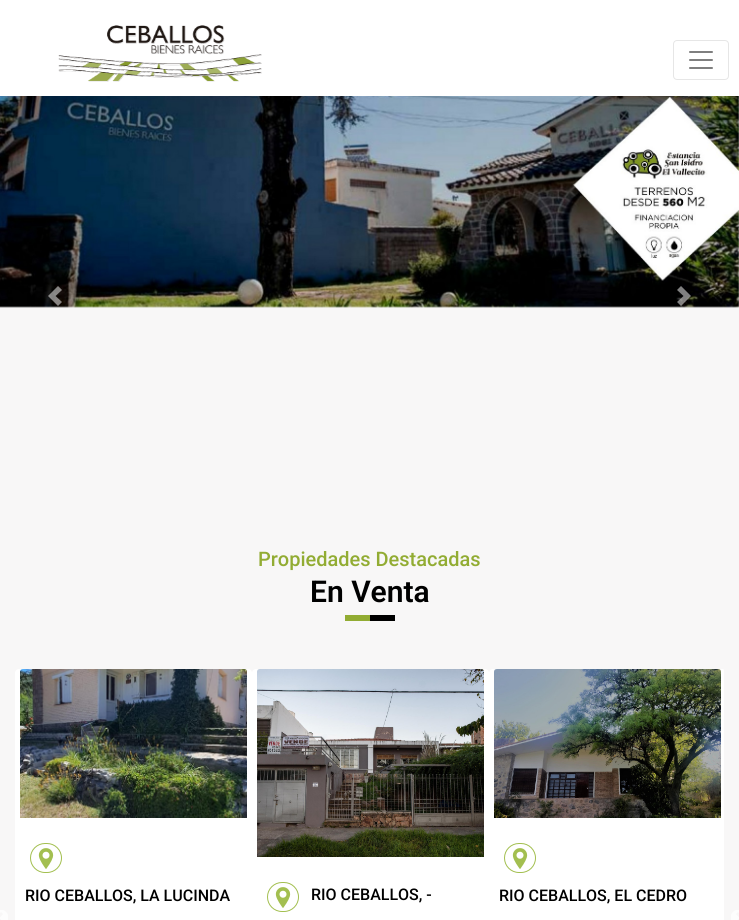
#include <cairo.h>
#include <math.h>
#include <stddef.h>


static void round_rect(cairo_t *cr, double x, double y, double w, double h, double r) {
    cairo_new_sub_path(cr);
    cairo_arc(cr, x + w - r, y + h - r, r, 0, M_PI / 2);
    cairo_arc(cr, x + r, y + h - r, r, M_PI / 2, M_PI);
    cairo_arc(cr, x + r, y + r, r, M_PI, 1.5 * M_PI);
    cairo_arc(cr, x + w - r, y + r, r, 1.5 * M_PI, 2 * M_PI);
    cairo_close_path(cr);
}

static void picture(cairo_t *cr, const char *path, double x, double y, double w, double h) {
    cairo_surface_t *image = cairo_image_surface_create_from_png(path);
    cairo_save(cr);
    cairo_set_source_surface(cr, image, x, y);
    cairo_rectangle(cr, x, y, w, h);
    cairo_fill(cr);
    cairo_restore(cr);
    cairo_surface_destroy(image);
}

int main(void) {
    cairo_surface_t *surface = cairo_image_surface_create(CAIRO_FORMAT_RGB24, 739, 920);
    cairo_t *cr = cairo_create(surface);
    cairo_font_options_t *options = cairo_font_options_create();
    cairo_font_options_set_hint_metrics(options, CAIRO_HINT_METRICS_OFF);
    cairo_font_options_set_hint_style(options, CAIRO_HINT_STYLE_NONE);
    cairo_set_font_options(cr, options);
    cairo_set_miter_limit(cr, 4);
    cairo_set_source_rgb(cr, 0.969, 0.965, 0.965);
    cairo_paint(cr);
    cairo_set_source_rgb(cr, 1, 1, 1);
    cairo_rectangle(cr, 0, 0, 739, 96);
    cairo_fill(cr);
    picture(cr, "img1.png", 58, 25, 204, 57);
    round_rect(cr, 673.5, 40.5, 55, 39, 3.5);
    cairo_set_source_rgb(cr, 0.902, 0.902, 0.902);
    cairo_set_line_width(cr, 1);
    cairo_stroke(cr);
    picture(cr, "img2.png", 689, 51, 24, 18);
    picture(cr, "img3.png", 0, 96, 739, 212);
    cairo_set_source_rgba(cr, 1, 1, 1, 0.5);
    cairo_new_path(cr);
    cairo_move_to(cr, 58, 286);
    cairo_line_to(cr, 48, 296);
    cairo_line_to(cr, 58, 306);
    cairo_line_to(cr, 62, 302);
    cairo_line_to(cr, 55.5, 296);
    cairo_line_to(cr, 62, 290);
    cairo_close_path(cr);
    cairo_fill(cr);
    cairo_new_path(cr);
    cairo_move_to(cr, 681, 286);
    cairo_line_to(cr, 677, 290);
    cairo_line_to(cr, 683.5, 296);
    cairo_line_to(cr, 677, 302);
    cairo_line_to(cr, 681, 306);
    cairo_line_to(cr, 691, 296);
    cairo_close_path(cr);
    cairo_fill(cr);
    cairo_select_font_face(cr, "Roboto Medium", CAIRO_FONT_SLANT_NORMAL, CAIRO_FONT_WEIGHT_NORMAL);
    cairo_set_font_size(cr, 20);
    cairo_set_source_rgb(cr, 0.573, 0.675, 0.2);
    cairo_move_to(cr, 258, 566);
    cairo_show_text(cr, "Propiedades Destacadas");
    cairo_select_font_face(cr, "Roboto SemiBold", CAIRO_FONT_SLANT_NORMAL, CAIRO_FONT_WEIGHT_NORMAL);
    cairo_set_font_size(cr, 30);
    cairo_set_source_rgb(cr, 0, 0, 0);
    cairo_move_to(cr, 310, 602);
    cairo_show_text(cr, "En Venta");
    cairo_set_source_rgb(cr, 0.573, 0.675, 0.2);
    cairo_rectangle(cr, 345, 615, 25, 6);
    cairo_fill(cr);
    cairo_set_source_rgb(cr, 0, 0, 0);
    cairo_rectangle(cr, 370, 615, 25, 6);
    cairo_fill(cr);
    cairo_set_source_rgb(cr, 1, 1, 1);
    round_rect(cr, 15, 669, 237, 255, 4);
    cairo_fill(cr);
    picture(cr, "img4.png", 20, 669, 227, 149);
    round_rect(cr, 30.5, 843.5, 31, 29, 14.5);
    cairo_set_source_rgb(cr, 0.639, 0.749, 0.314);
    cairo_stroke(cr);
    picture(cr, "img5.png", 38, 848, 16, 21);
    cairo_select_font_face(cr, "Roboto Medium", CAIRO_FONT_SLANT_NORMAL, CAIRO_FONT_WEIGHT_NORMAL);
    cairo_set_font_size(cr, 16);
    cairo_set_source_rgb(cr, 0, 0, 0);
    cairo_move_to(cr, 25, 901);
    cairo_show_text(cr, "RIO CEBALLOS, LA LUCINDA");
    cairo_set_source_rgb(cr, 1, 1, 1);
    round_rect(cr, 252, 669, 237, 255, 4);
    cairo_fill(cr);
    picture(cr, "img6.png", 257, 669, 227, 188);
    round_rect(cr, 267.5, 882.5, 31, 29, 14.5);
    cairo_set_source_rgb(cr, 0.639, 0.749, 0.314);
    cairo_stroke(cr);
    picture(cr, "img5.png", 275, 887, 16, 21);
    cairo_set_source_rgb(cr, 0, 0, 0);
    cairo_move_to(cr, 311, 900);
    cairo_show_text(cr, "RIO CEBALLOS, -");
    cairo_save(cr);
    cairo_rectangle(cr, 15, 669, 709, 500);
    cairo_clip(cr);
    cairo_set_source_rgb(cr, 1, 1, 1);
    round_rect(cr, 489, 669, 237, 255, 4);
    cairo_fill(cr);
    cairo_restore(cr);
    picture(cr, "img7.png", 494, 669, 227, 149);
    round_rect(cr, 504.5, 843.5, 31, 29, 14.5);
    cairo_set_source_rgb(cr, 0.639, 0.749, 0.314);
    cairo_stroke(cr);
    picture(cr, "img5.png", 512, 848, 16, 21);
    cairo_set_source_rgb(cr, 0, 0, 0);
    cairo_move_to(cr, 499, 901);
    cairo_show_text(cr, "RIO CEBALLOS, EL CEDRO");
    picture(cr, "img8.png", 0, 910, 8, 10);
    picture(cr, "img9.png", 731, 910, 8, 10);
    cairo_surface_write_to_png(surface, "page.png");
    cairo_font_options_destroy(options);
    cairo_destroy(cr);
    cairo_surface_destroy(surface);
    return 0;
}
